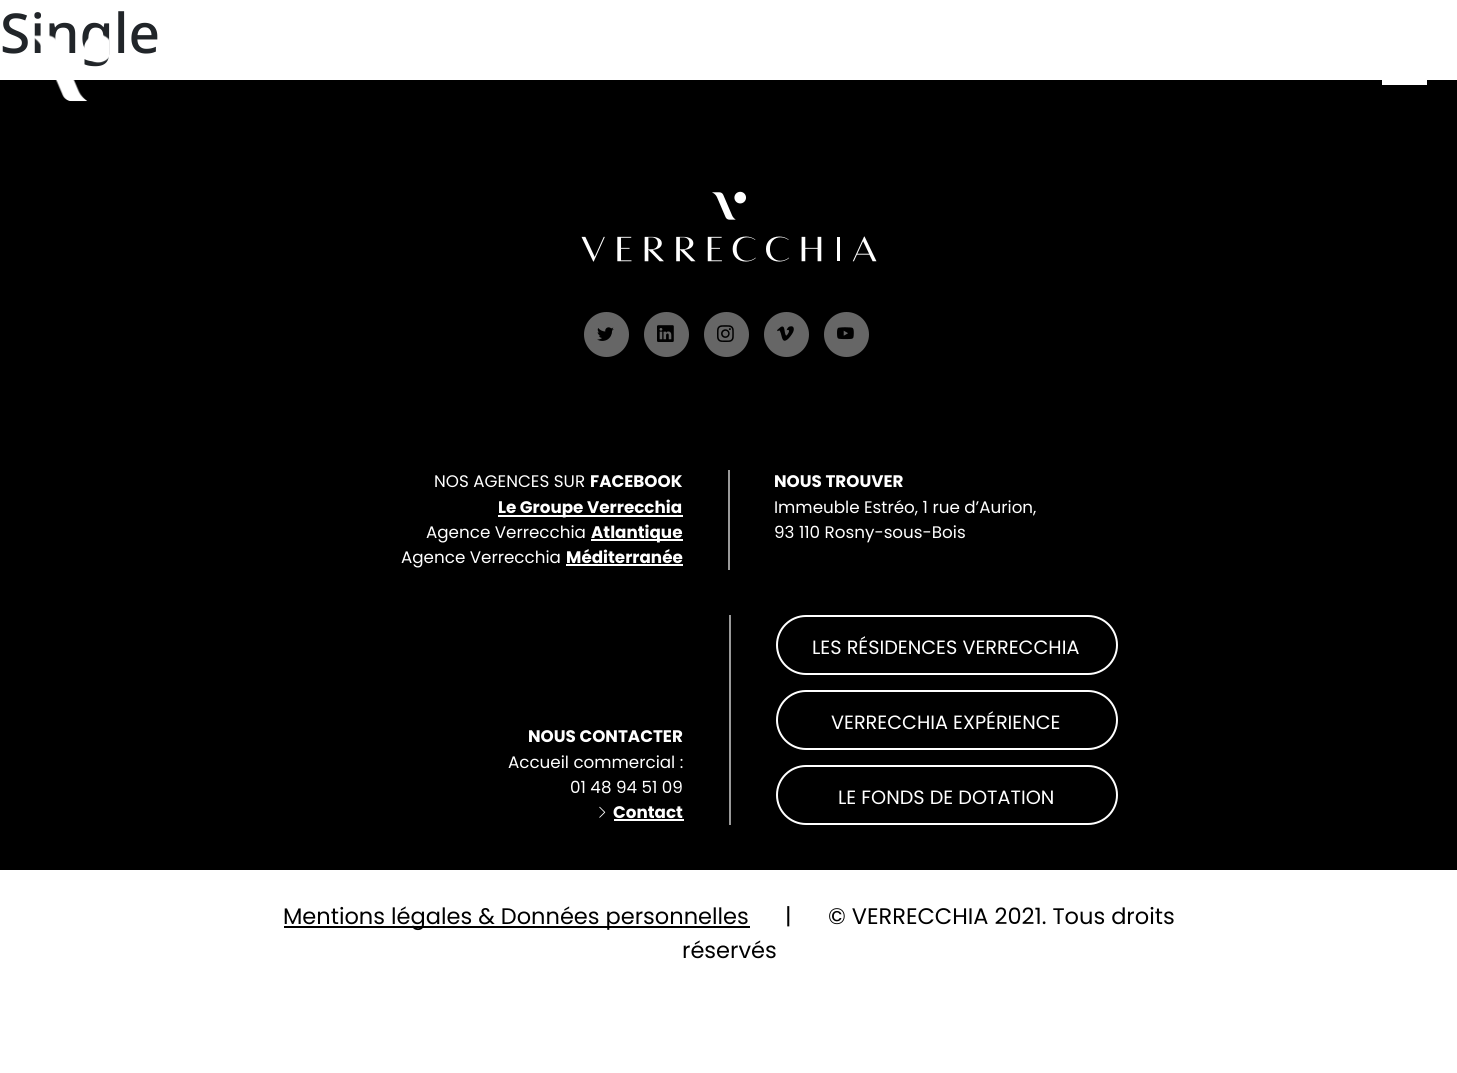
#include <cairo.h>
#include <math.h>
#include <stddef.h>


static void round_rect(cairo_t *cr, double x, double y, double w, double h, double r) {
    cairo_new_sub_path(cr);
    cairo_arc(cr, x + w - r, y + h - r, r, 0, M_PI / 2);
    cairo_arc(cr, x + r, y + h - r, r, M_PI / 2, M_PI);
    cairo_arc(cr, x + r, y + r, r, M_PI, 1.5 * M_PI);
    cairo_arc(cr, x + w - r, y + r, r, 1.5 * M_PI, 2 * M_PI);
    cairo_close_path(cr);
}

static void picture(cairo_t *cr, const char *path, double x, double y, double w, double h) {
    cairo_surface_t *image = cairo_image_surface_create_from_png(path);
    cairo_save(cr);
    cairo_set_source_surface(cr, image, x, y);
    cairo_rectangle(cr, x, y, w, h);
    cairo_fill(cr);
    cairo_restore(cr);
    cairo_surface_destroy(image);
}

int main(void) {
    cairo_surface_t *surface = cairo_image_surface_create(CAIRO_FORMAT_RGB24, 1457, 1073);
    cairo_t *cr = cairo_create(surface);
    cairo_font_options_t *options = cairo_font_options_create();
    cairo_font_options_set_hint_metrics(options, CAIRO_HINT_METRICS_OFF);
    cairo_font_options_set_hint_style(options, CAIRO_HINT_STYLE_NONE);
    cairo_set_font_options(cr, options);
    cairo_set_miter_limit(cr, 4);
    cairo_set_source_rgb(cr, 1, 1, 1);
    cairo_paint(cr);
    cairo_select_font_face(cr, "Noto Sans Medium", CAIRO_FONT_SLANT_NORMAL, CAIRO_FONT_WEIGHT_NORMAL);
    cairo_set_font_size(cr, 55);
    cairo_set_source_rgb(cr, 0.129, 0.145, 0.161);
    cairo_move_to(cr, 0, 53);
    cairo_show_text(cr, "Single");
    cairo_set_source_rgb(cr, 0, 0, 0);
    cairo_rectangle(cr, 0, 80, 1457, 790);
    cairo_fill(cr);
    picture(cr, "img1.png", 34, 35, 75, 67);
    cairo_set_source_rgb(cr, 1, 1, 1);
    cairo_rectangle(cr, 1382, 80, 45, 5);
    cairo_fill(cr);
    picture(cr, "img2.png", 581, 191, 296, 71);
    cairo_set_source_rgb(cr, 0.4, 0.4, 0.4);
    cairo_arc(cr, 606.5, 334.5, 22.5, 0, 2 * M_PI);
    cairo_fill(cr);
    picture(cr, "img3.png", 597, 327, 17, 14);
    cairo_arc(cr, 666.5, 334.5, 22.5, 0, 2 * M_PI);
    cairo_fill(cr);
    picture(cr, "img4.png", 657, 325, 17, 17);
    cairo_arc(cr, 726.5, 334.5, 22.5, 0, 2 * M_PI);
    cairo_fill(cr);
    picture(cr, "img5.png", 717, 325, 17, 17);
    cairo_arc(cr, 786.5, 334.5, 22.5, 0, 2 * M_PI);
    cairo_fill(cr);
    picture(cr, "img6.png", 777, 326, 17, 15);
    cairo_arc(cr, 846.5, 334.5, 22.5, 0, 2 * M_PI);
    cairo_fill(cr);
    picture(cr, "img7.png", 837, 327, 17, 13);
    cairo_set_source_rgb(cr, 0.6, 0.6, 0.6);
    cairo_rectangle(cr, 728, 470, 2, 100);
    cairo_fill(cr);
    cairo_select_font_face(cr, "Poppins", CAIRO_FONT_SLANT_NORMAL, CAIRO_FONT_WEIGHT_NORMAL);
    cairo_set_font_size(cr, 16.75);
    cairo_set_source_rgb(cr, 1, 1, 1);
    cairo_move_to(cr, 434, 487);
    cairo_show_text(cr, "NOS AGENCES SUR");
    cairo_select_font_face(cr, "Poppins", CAIRO_FONT_SLANT_NORMAL, CAIRO_FONT_WEIGHT_BOLD);
    cairo_move_to(cr, 590, 487);
    cairo_show_text(cr, "FACEBOOK");
    cairo_rectangle(cr, 498, 515, 185, 2);
    cairo_fill(cr);
    cairo_move_to(cr, 498, 513);
    cairo_show_text(cr, "Le Groupe Verrecchia");
    cairo_select_font_face(cr, "Poppins", CAIRO_FONT_SLANT_NORMAL, CAIRO_FONT_WEIGHT_NORMAL);
    cairo_move_to(cr, 426, 538);
    cairo_show_text(cr, "Agence Verrecchia");
    cairo_rectangle(cr, 591, 539, 92, 2);
    cairo_fill(cr);
    cairo_select_font_face(cr, "Poppins", CAIRO_FONT_SLANT_NORMAL, CAIRO_FONT_WEIGHT_BOLD);
    cairo_move_to(cr, 591, 538);
    cairo_show_text(cr, "Atlantique");
    cairo_select_font_face(cr, "Poppins", CAIRO_FONT_SLANT_NORMAL, CAIRO_FONT_WEIGHT_NORMAL);
    cairo_move_to(cr, 401, 563);
    cairo_show_text(cr, "Agence Verrecchia");
    cairo_select_font_face(cr, "Poppins", CAIRO_FONT_SLANT_NORMAL, CAIRO_FONT_WEIGHT_BOLD);
    cairo_move_to(cr, 566, 563);
    cairo_show_text(cr, "Méditerranée");
    cairo_rectangle(cr, 566, 564, 117, 2);
    cairo_fill(cr);
    cairo_move_to(cr, 774, 487);
    cairo_show_text(cr, "NOUS TROUVER");
    cairo_select_font_face(cr, "Poppins", CAIRO_FONT_SLANT_NORMAL, CAIRO_FONT_WEIGHT_NORMAL);
    cairo_move_to(cr, 774, 513);
    cairo_show_text(cr, "Immeuble Estréo, 1 rue d’Aurion,");
    cairo_move_to(cr, 774, 538);
    cairo_show_text(cr, "93 110 Rosny-sous-Bois");
    cairo_set_source_rgb(cr, 0.6, 0.6, 0.6);
    cairo_rectangle(cr, 729, 615, 2, 210);
    cairo_fill(cr);
    cairo_select_font_face(cr, "Poppins", CAIRO_FONT_SLANT_NORMAL, CAIRO_FONT_WEIGHT_BOLD);
    cairo_set_source_rgb(cr, 1, 1, 1);
    cairo_move_to(cr, 528, 742);
    cairo_show_text(cr, "NOUS CONTACTER");
    cairo_select_font_face(cr, "Poppins", CAIRO_FONT_SLANT_NORMAL, CAIRO_FONT_WEIGHT_NORMAL);
    cairo_move_to(cr, 508, 768);
    cairo_show_text(cr, "Accueil commercial :");
    cairo_move_to(cr, 570, 793);
    cairo_show_text(cr, "01 48 94 51 09");
    picture(cr, "img8.png", 599, 806, 7, 12);
    cairo_select_font_face(cr, "Poppins", CAIRO_FONT_SLANT_NORMAL, CAIRO_FONT_WEIGHT_BOLD);
    cairo_move_to(cr, 613, 818);
    cairo_show_text(cr, "Contact");
    cairo_rectangle(cr, 614, 819, 70, 2);
    cairo_fill(cr);
    round_rect(cr, 777, 616, 340, 58, 29);
    cairo_stroke(cr);
    cairo_select_font_face(cr, "Poppins", CAIRO_FONT_SLANT_NORMAL, CAIRO_FONT_WEIGHT_NORMAL);
    cairo_set_font_size(cr, 19.25);
    cairo_move_to(cr, 812, 654);
    cairo_show_text(cr, "LES RÉSIDENCES VERRECCHIA");
    round_rect(cr, 777, 691, 340, 58, 29);
    cairo_stroke(cr);
    cairo_move_to(cr, 831, 729);
    cairo_show_text(cr, "VERRECCHIA EXPÉRIENCE");
    round_rect(cr, 777, 766, 340, 58, 29);
    cairo_stroke(cr);
    cairo_move_to(cr, 838, 804);
    cairo_show_text(cr, "LE FONDS DE DOTATION");
    cairo_set_source_rgb(cr, 0, 0, 0);
    cairo_rectangle(cr, 284, 926, 466, 2);
    cairo_fill(cr);
    cairo_set_font_size(cr, 22.5);
    cairo_move_to(cr, 283, 924);
    cairo_show_text(cr, "Mentions légales & Données personnelles");
    cairo_move_to(cr, 785, 924);
    cairo_show_text(cr, "|");
    cairo_move_to(cr, 828, 924);
    cairo_show_text(cr, "© VERRECCHIA 2021. Tous droits");
    cairo_move_to(cr, 682, 958);
    cairo_show_text(cr, "réservés");
    cairo_surface_write_to_png(surface, "page.png");
    cairo_font_options_destroy(options);
    cairo_destroy(cr);
    cairo_surface_destroy(surface);
    return 0;
}
